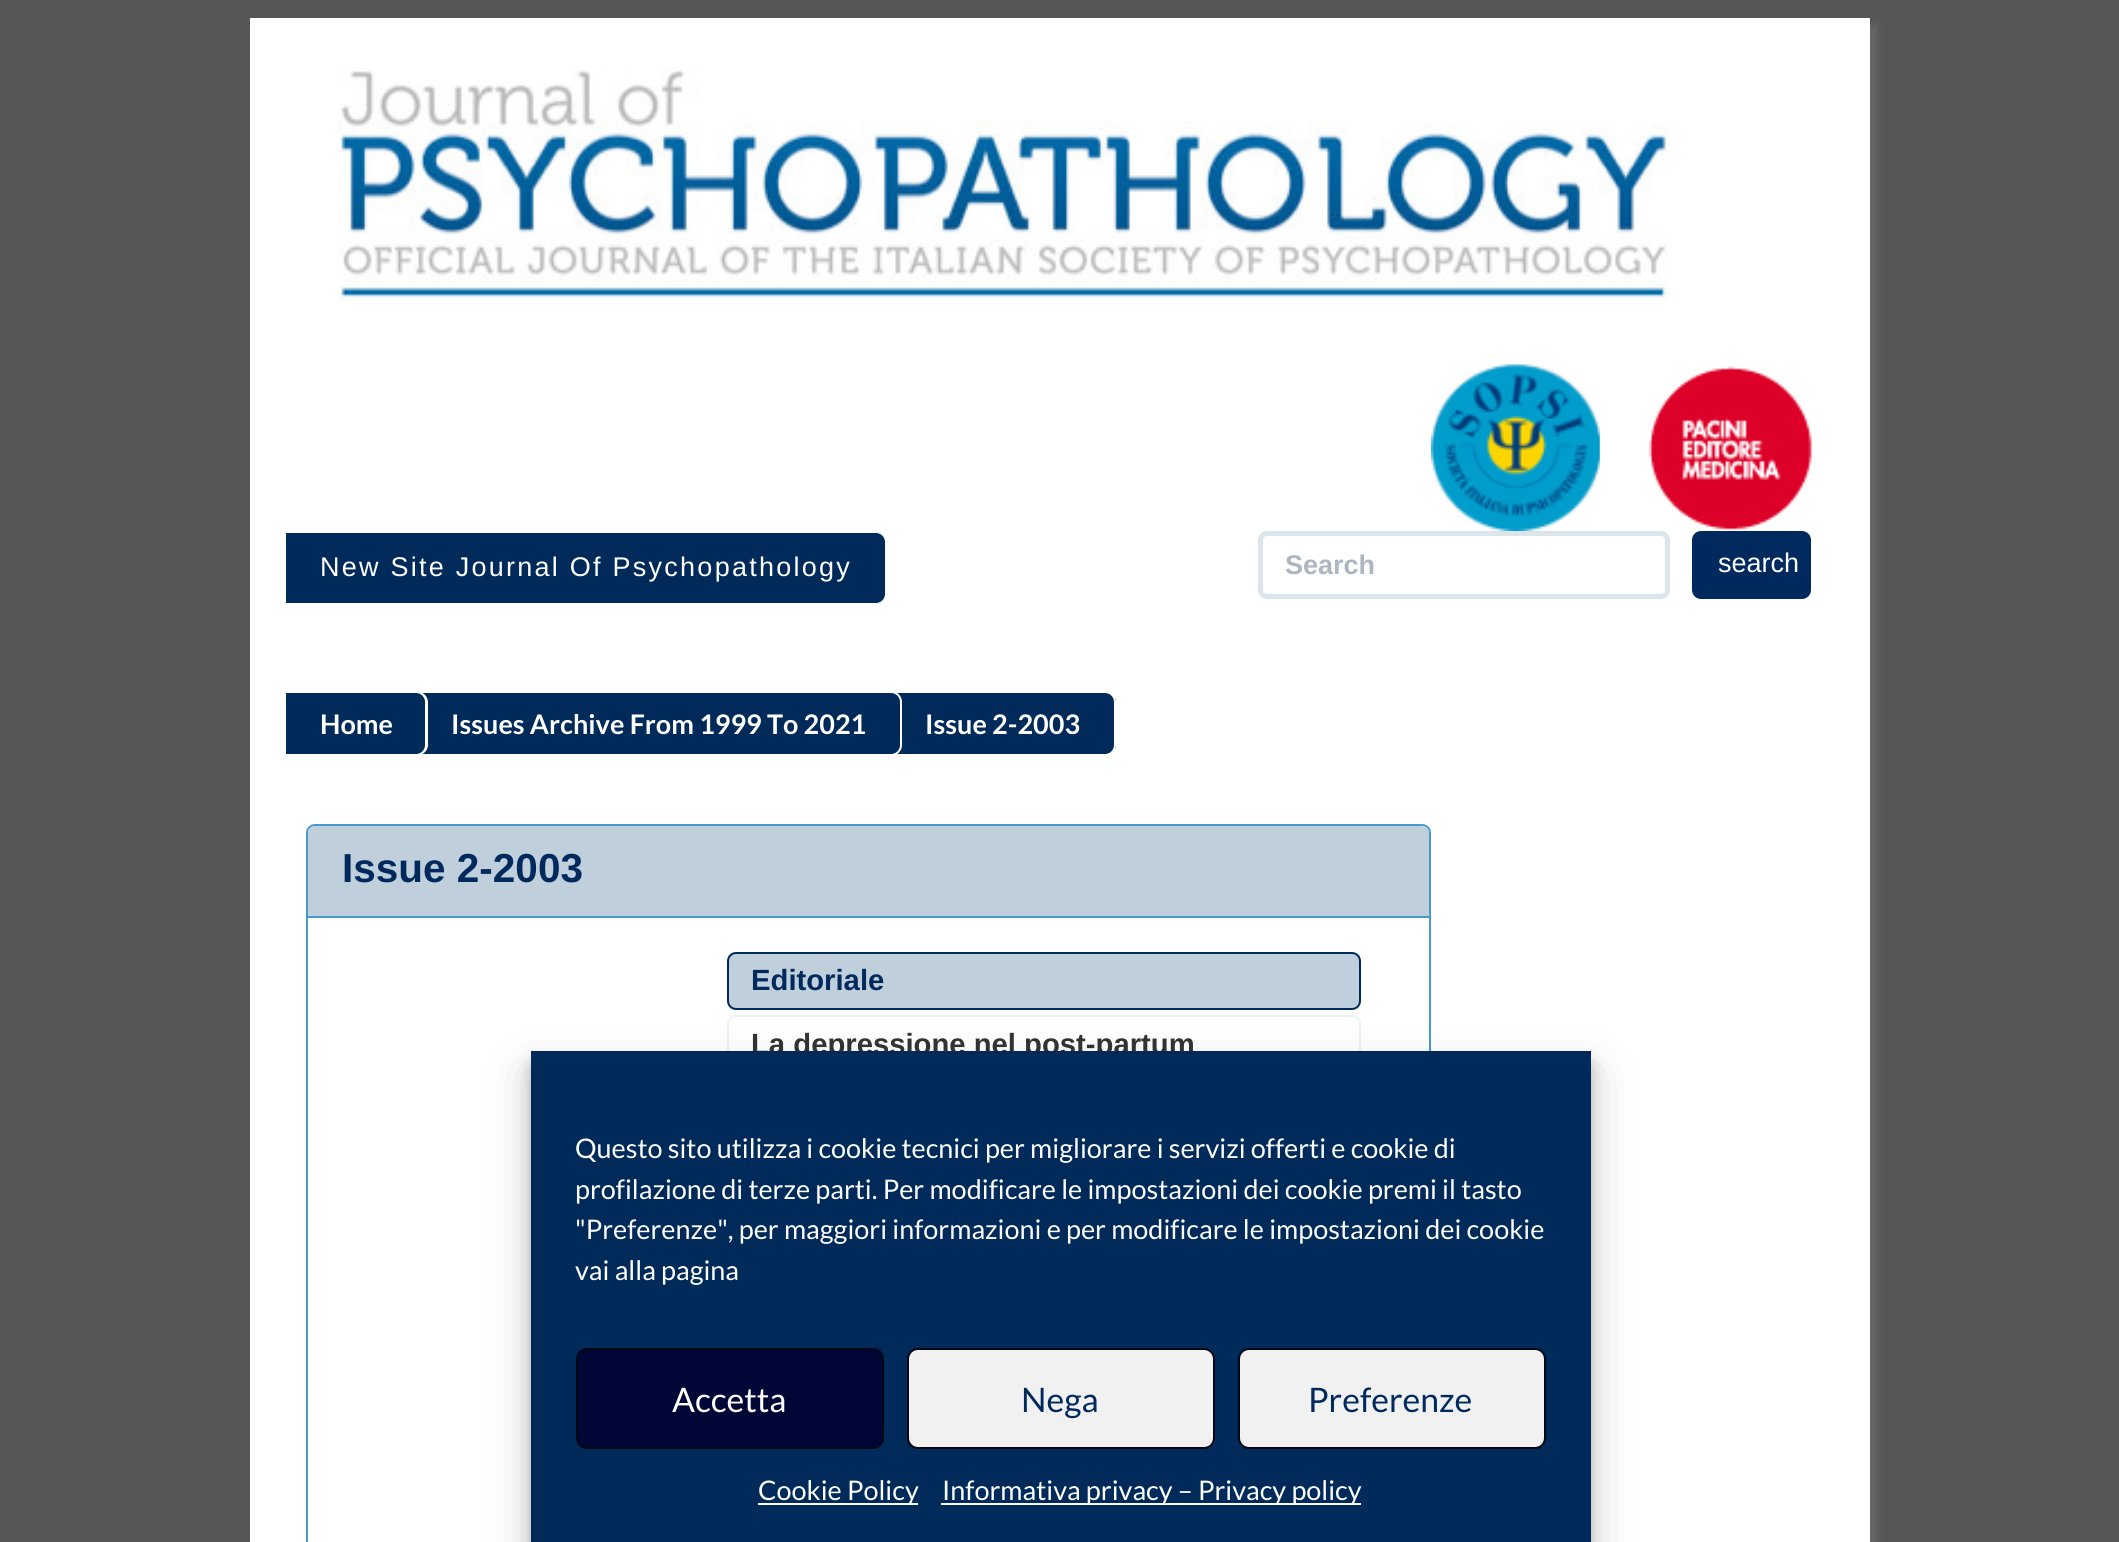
#include <cairo.h>
#include <math.h>
#include <stddef.h>


static void spaced_text(cairo_t *cr, double x, double y, const char *s, double letter, double word) {
    cairo_move_to(cr, x, y);
    while (*s) {
        char ch[5] = {0};
        int n = 0;
        do ch[n++] = *s++; while ((*s & 0xC0) == 0x80);
        cairo_show_text(cr, ch);
        cairo_rel_move_to(cr, letter + word * (*ch == ' '), 0);
    }
}

static void round_rect(cairo_t *cr, double x, double y, double w, double h, double r) {
    cairo_new_sub_path(cr);
    cairo_arc(cr, x + w - r, y + h - r, r, 0, M_PI / 2);
    cairo_arc(cr, x + r, y + h - r, r, M_PI / 2, M_PI);
    cairo_arc(cr, x + r, y + r, r, M_PI, 1.5 * M_PI);
    cairo_arc(cr, x + w - r, y + r, r, 1.5 * M_PI, 2 * M_PI);
    cairo_close_path(cr);
}

static void shadow(cairo_t *cr, double x, double y, double w, double h, double r, double blur, double alpha) {
    cairo_push_group_with_content(cr, CAIRO_CONTENT_ALPHA);
    cairo_set_operator(cr, CAIRO_OPERATOR_SOURCE);
    for (int i = 15; i >= -15 && fmin(w, h) + blur * i / 3 > 0; i -= 2) {
        double e = blur * i / 6;
        cairo_set_source_rgba(cr, 0, 0, 0, alpha * erfc((i - 1) / 8.5) / 2);
        round_rect(cr, x - e, y - e, w + 2 * e, h + 2 * e, fmax(0, fmin(r + e + blur * .6, fmin(w, h) / 2 + e)));
        cairo_fill(cr);
    }
    cairo_pattern_t *soft = cairo_pop_group(cr);
    cairo_mask(cr, soft);
    cairo_pattern_destroy(soft);
}

static void picture(cairo_t *cr, const char *path, double x, double y, double w, double h) {
    cairo_surface_t *image = cairo_image_surface_create_from_png(path);
    cairo_save(cr);
    cairo_set_source_surface(cr, image, x, y);
    cairo_rectangle(cr, x, y, w, h);
    cairo_fill(cr);
    cairo_restore(cr);
    cairo_surface_destroy(image);
}

int main(void) {
    cairo_surface_t *surface = cairo_image_surface_create(CAIRO_FORMAT_RGB24, 2119, 1542);
    cairo_t *cr = cairo_create(surface);
    cairo_font_options_t *options = cairo_font_options_create();
    cairo_font_options_set_hint_metrics(options, CAIRO_HINT_METRICS_OFF);
    cairo_font_options_set_hint_style(options, CAIRO_HINT_STYLE_NONE);
    cairo_set_font_options(cr, options);
    cairo_set_miter_limit(cr, 4);
    cairo_set_source_rgb(cr, 0.337, 0.337, 0.337);
    cairo_paint(cr);
    cairo_set_source_rgb(cr, 0.4, 0.4, 0.4);
    shadow(cr, 257, 25, 1620, 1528, 0, 3.5, 1);
    cairo_set_source_rgb(cr, 1, 1, 1);
    cairo_rectangle(cr, 250, 18, 1620, 1524);
    cairo_fill(cr);
    picture(cr, "img1.png", 337, 68, 1333, 234);
    picture(cr, "img2.png", 1431, 364, 169, 167);
    picture(cr, "img3.png", 1648, 366, 164, 164);
    cairo_set_source_rgb(cr, 0, 0.165, 0.349);
    cairo_new_path(cr);
    cairo_move_to(cr, 285, 532);
    cairo_line_to(cr, 876, 532);
    cairo_curve_to(cr, 881.5, 532, 886, 536.5, 886, 542);
    cairo_line_to(cr, 886, 594);
    cairo_curve_to(cr, 886, 599.5, 881.5, 604, 876, 604);
    cairo_line_to(cr, 285, 604);
    cairo_close_path(cr);
    cairo_fill_preserve(cr);
    cairo_set_source_rgb(cr, 1, 1, 1);
    cairo_stroke(cr);
    cairo_select_font_face(cr, "Liberation Sans", CAIRO_FONT_SLANT_NORMAL, CAIRO_FONT_WEIGHT_NORMAL);
    cairo_set_font_size(cr, 27);
    spaced_text(cr, 320, 576, "New Site Journal Of Psychopathology", 2.25, 0);
    round_rect(cr, 1260.5, 533.5, 407, 63, 6.5);
    cairo_set_source_rgb(cr, 0.863, 0.894, 0.925);
    cairo_set_line_width(cr, 5);
    cairo_stroke(cr);
    cairo_select_font_face(cr, "Liberation Sans", CAIRO_FONT_SLANT_NORMAL, CAIRO_FONT_WEIGHT_BOLD);
    cairo_set_source_rgb(cr, 0.675, 0.714, 0.753);
    cairo_move_to(cr, 1285, 574);
    cairo_show_text(cr, "Search");
    cairo_set_source_rgb(cr, 0, 0.165, 0.365);
    round_rect(cr, 1693, 532, 117, 66, 8);
    cairo_fill_preserve(cr);
    cairo_set_line_width(cr, 2);
    cairo_stroke(cr);
    cairo_select_font_face(cr, "Liberation Sans", CAIRO_FONT_SLANT_NORMAL, CAIRO_FONT_WEIGHT_NORMAL);
    cairo_set_source_rgb(cr, 1, 1, 1);
    cairo_move_to(cr, 1718, 572);
    cairo_show_text(cr, "search");
    cairo_set_source_rgb(cr, 0, 0.165, 0.349);
    cairo_new_path(cr);
    cairo_move_to(cr, 285, 692);
    cairo_line_to(cr, 1107, 692);
    cairo_curve_to(cr, 1112.5, 692, 1117, 696.5, 1117, 702);
    cairo_line_to(cr, 1117, 745);
    cairo_curve_to(cr, 1117, 750.5, 1112.5, 755, 1107, 755);
    cairo_line_to(cr, 285, 755);
    cairo_close_path(cr);
    cairo_fill_preserve(cr);
    cairo_set_source_rgb(cr, 1, 1, 1);
    cairo_stroke(cr);
    cairo_set_fill_rule(cr, CAIRO_FILL_RULE_EVEN_ODD);
    cairo_new_path(cr);
    cairo_move_to(cr, 286, 691);
    cairo_line_to(cr, 416, 691);
    cairo_curve_to(cr, 422, 691, 428, 696, 428, 702);
    cairo_line_to(cr, 428, 745);
    cairo_curve_to(cr, 428, 751, 422, 756, 416, 756);
    cairo_line_to(cr, 286, 756);
    cairo_close_path(cr);
    cairo_move_to(cr, 286, 693);
    cairo_line_to(cr, 416, 693);
    cairo_curve_to(cr, 421, 693, 425, 697, 425, 702);
    cairo_line_to(cr, 425, 745);
    cairo_curve_to(cr, 425, 750, 421, 754, 416, 754);
    cairo_line_to(cr, 286, 754);
    cairo_close_path(cr);
    cairo_fill(cr);
    cairo_select_font_face(cr, "Lato", CAIRO_FONT_SLANT_NORMAL, CAIRO_FONT_WEIGHT_BOLD);
    cairo_move_to(cr, 320, 734);
    cairo_show_text(cr, "Home");
    cairo_new_path(cr);
    cairo_move_to(cr, 416, 691);
    cairo_line_to(cr, 891, 691);
    cairo_curve_to(cr, 897, 691, 902, 696, 902, 702);
    cairo_line_to(cr, 902, 745);
    cairo_curve_to(cr, 902, 751, 897, 756, 891, 756);
    cairo_line_to(cr, 416, 756);
    cairo_close_path(cr);
    cairo_move_to(cr, 416, 693);
    cairo_line_to(cr, 891, 693);
    cairo_curve_to(cr, 896, 693, 900, 697, 900, 702);
    cairo_line_to(cr, 900, 745);
    cairo_curve_to(cr, 900, 750, 896, 754, 891, 754);
    cairo_line_to(cr, 416, 754);
    cairo_close_path(cr);
    cairo_fill(cr);
    cairo_move_to(cr, 451, 734);
    cairo_show_text(cr, "Issues Archive From 1999 To 2021");
    cairo_new_path(cr);
    cairo_move_to(cr, 891, 691);
    cairo_line_to(cr, 1105, 691);
    cairo_curve_to(cr, 1111, 691, 1116, 696, 1116, 702);
    cairo_line_to(cr, 1116, 745);
    cairo_curve_to(cr, 1116, 751, 1111, 756, 1105, 756);
    cairo_line_to(cr, 891, 756);
    cairo_close_path(cr);
    cairo_move_to(cr, 891, 693);
    cairo_line_to(cr, 1105, 693);
    cairo_curve_to(cr, 1110, 693, 1114, 697, 1114, 702);
    cairo_line_to(cr, 1114, 745);
    cairo_curve_to(cr, 1114, 750, 1110, 754, 1105, 754);
    cairo_line_to(cr, 891, 754);
    cairo_close_path(cr);
    cairo_fill(cr);
    cairo_move_to(cr, 925, 734);
    cairo_show_text(cr, "Issue 2-2003");
    round_rect(cr, 307, 825, 1123, 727, 8);
    cairo_set_source_rgb(cr, 0.278, 0.6, 0.808);
    cairo_stroke(cr);
    cairo_set_source_rgb(cr, 0.749, 0.812, 0.859);
    cairo_new_path(cr);
    cairo_move_to(cr, 315, 826);
    cairo_line_to(cr, 1422, 826);
    cairo_curve_to(cr, 1426, 826, 1429, 829, 1429, 833);
    cairo_line_to(cr, 1429, 918);
    cairo_line_to(cr, 308, 918);
    cairo_line_to(cr, 308, 833);
    cairo_curve_to(cr, 308, 829, 311, 826, 315, 826);
    cairo_close_path(cr);
    cairo_fill(cr);
    cairo_set_source_rgb(cr, 0.278, 0.6, 0.808);
    cairo_rectangle(cr, 308, 916, 1121, 2);
    cairo_fill(cr);
    cairo_select_font_face(cr, "Liberation Sans", CAIRO_FONT_SLANT_NORMAL, CAIRO_FONT_WEIGHT_BOLD);
    cairo_set_font_size(cr, 40.5);
    cairo_set_source_rgb(cr, 0, 0.165, 0.365);
    cairo_move_to(cr, 342, 882);
    cairo_show_text(cr, "Issue 2-2003");
    cairo_set_source_rgb(cr, 0.749, 0.812, 0.859);
    round_rect(cr, 728, 953, 632, 56, 8);
    cairo_fill_preserve(cr);
    cairo_set_source_rgb(cr, 0, 0.165, 0.349);
    cairo_stroke(cr);
    cairo_set_font_size(cr, 29.25);
    cairo_set_source_rgb(cr, 0, 0.165, 0.365);
    cairo_move_to(cr, 751, 990);
    cairo_show_text(cr, "Editoriale");
    round_rect(cr, 728, 1016, 632, 110, 8);
    cairo_set_source_rgb(cr, 0.925, 0.941, 0.945);
    cairo_stroke(cr);
    cairo_set_source_rgb(cr, 0.2, 0.2, 0.2);
    cairo_move_to(cr, 751, 1054);
    cairo_show_text(cr, "La depressione nel post-partum");
    cairo_set_source_rgb(cr, 0, 0, 0);
    shadow(cr, 531, 1064, 1060, 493, 0, 7, 0.23);
    shadow(cr, 531, 1073, 1060, 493, 0, 22.5, 0.19);
    cairo_set_source_rgb(cr, 0, 0.165, 0.349);
    cairo_rectangle(cr, 531, 1051, 1060, 491);
    cairo_fill(cr);
    cairo_select_font_face(cr, "Lato", CAIRO_FONT_SLANT_NORMAL, CAIRO_FONT_WEIGHT_NORMAL);
    cairo_set_font_size(cr, 27);
    cairo_set_source_rgb(cr, 1, 1, 1);
    cairo_move_to(cr, 575, 1158);
    cairo_show_text(cr, "Questo sito utilizza i cookie tecnici per migliorare i servizi offerti e cookie di");
    cairo_move_to(cr, 575, 1199);
    cairo_show_text(cr, "profilazione di terze parti. Per modificare le impostazioni dei cookie premi il tasto");
    cairo_move_to(cr, 575, 1239);
    cairo_show_text(cr, "\"Preferenze\", per maggiori informazioni e per modificare le impostazioni dei cookie");
    cairo_move_to(cr, 575, 1280);
    cairo_show_text(cr, "vai alla pagina");
    cairo_set_source_rgb(cr, 0, 0.031, 0.216);
    round_rect(cr, 577, 1349, 306, 99, 10);
    cairo_fill_preserve(cr);
    cairo_set_source_rgb(cr, 0, 0.024, 0.082);
    cairo_stroke(cr);
    cairo_set_font_size(cr, 33.75);
    cairo_set_source_rgb(cr, 1, 1, 1);
    cairo_move_to(cr, 672, 1412);
    cairo_show_text(cr, "Accetta");
    cairo_set_source_rgb(cr, 0.945, 0.945, 0.945);
    round_rect(cr, 908, 1349, 306, 99, 10);
    cairo_fill_preserve(cr);
    cairo_set_source_rgb(cr, 0, 0.024, 0.082);
    cairo_stroke(cr);
    cairo_set_source_rgb(cr, 0, 0.165, 0.365);
    cairo_move_to(cr, 1021, 1412);
    cairo_show_text(cr, "Nega");
    cairo_set_source_rgb(cr, 0.945, 0.945, 0.945);
    round_rect(cr, 1239, 1349, 306, 99, 10);
    cairo_fill_preserve(cr);
    cairo_set_source_rgb(cr, 0, 0.024, 0.082);
    cairo_stroke(cr);
    cairo_set_source_rgb(cr, 0, 0.165, 0.365);
    cairo_move_to(cr, 1308, 1412);
    cairo_show_text(cr, "Preferenze");
    cairo_set_source_rgb(cr, 1, 1, 1);
    cairo_rectangle(cr, 758, 1503, 160, 2);
    cairo_fill(cr);
    cairo_set_font_size(cr, 27);
    cairo_move_to(cr, 758, 1500);
    cairo_show_text(cr, "Cookie Policy");
    cairo_rectangle(cr, 941, 1503, 420, 2);
    cairo_fill(cr);
    cairo_move_to(cr, 942, 1500);
    cairo_show_text(cr, "Informativa privacy – Privacy policy");
    cairo_surface_write_to_png(surface, "page.png");
    cairo_font_options_destroy(options);
    cairo_destroy(cr);
    cairo_surface_destroy(surface);
    return 0;
}
